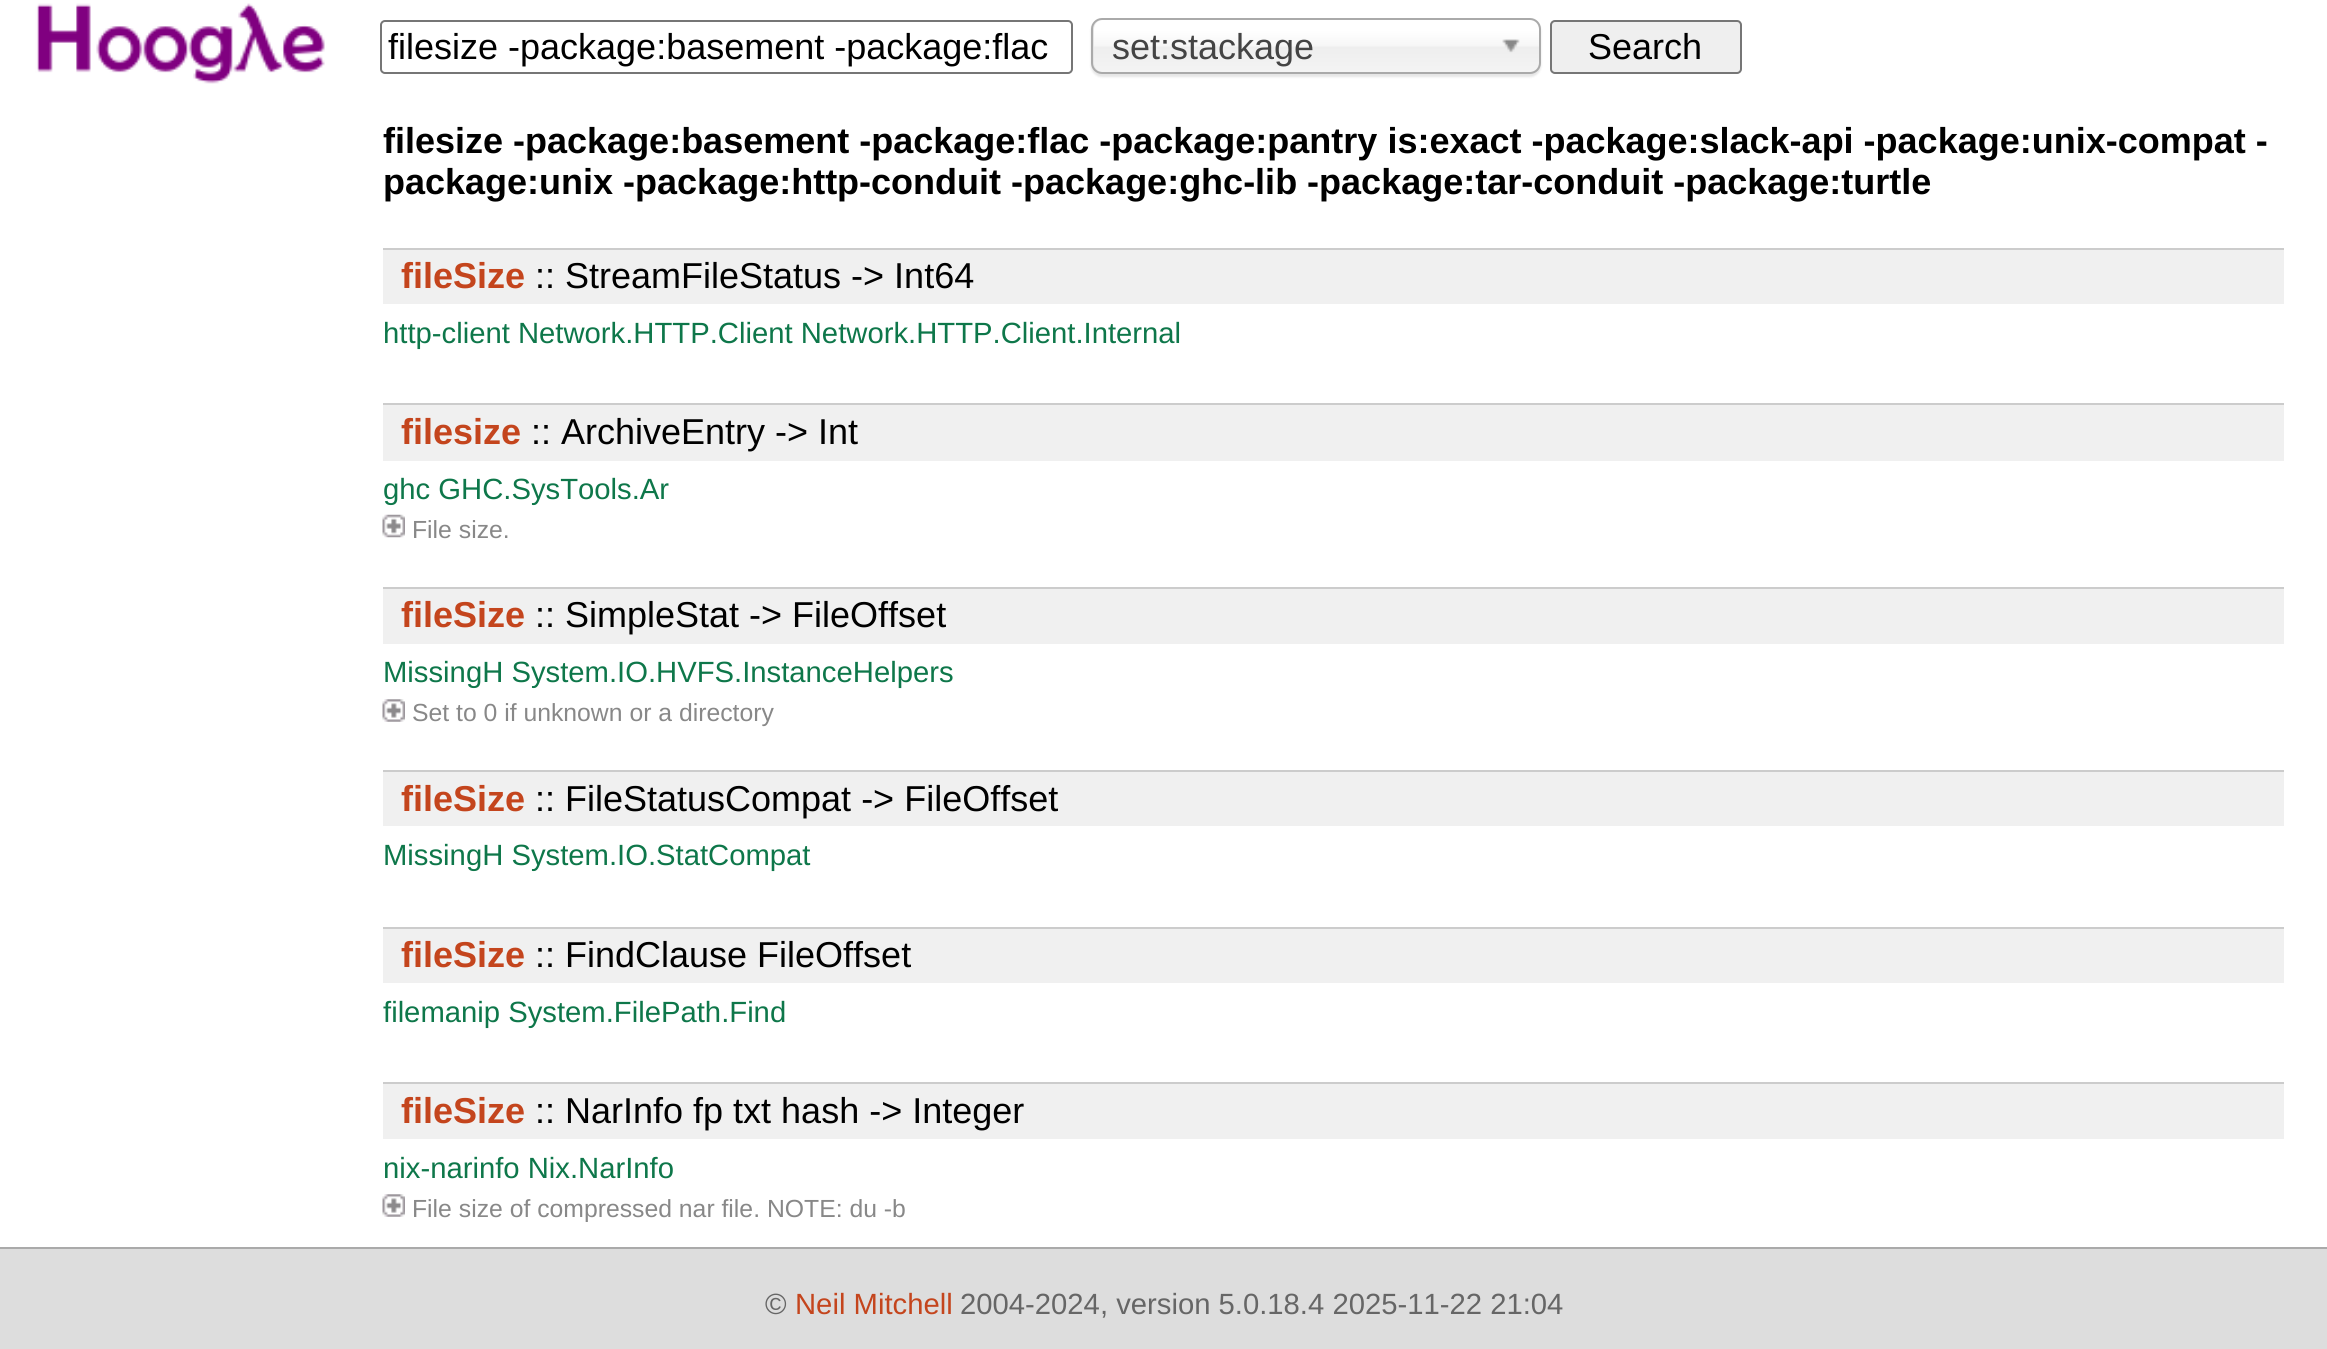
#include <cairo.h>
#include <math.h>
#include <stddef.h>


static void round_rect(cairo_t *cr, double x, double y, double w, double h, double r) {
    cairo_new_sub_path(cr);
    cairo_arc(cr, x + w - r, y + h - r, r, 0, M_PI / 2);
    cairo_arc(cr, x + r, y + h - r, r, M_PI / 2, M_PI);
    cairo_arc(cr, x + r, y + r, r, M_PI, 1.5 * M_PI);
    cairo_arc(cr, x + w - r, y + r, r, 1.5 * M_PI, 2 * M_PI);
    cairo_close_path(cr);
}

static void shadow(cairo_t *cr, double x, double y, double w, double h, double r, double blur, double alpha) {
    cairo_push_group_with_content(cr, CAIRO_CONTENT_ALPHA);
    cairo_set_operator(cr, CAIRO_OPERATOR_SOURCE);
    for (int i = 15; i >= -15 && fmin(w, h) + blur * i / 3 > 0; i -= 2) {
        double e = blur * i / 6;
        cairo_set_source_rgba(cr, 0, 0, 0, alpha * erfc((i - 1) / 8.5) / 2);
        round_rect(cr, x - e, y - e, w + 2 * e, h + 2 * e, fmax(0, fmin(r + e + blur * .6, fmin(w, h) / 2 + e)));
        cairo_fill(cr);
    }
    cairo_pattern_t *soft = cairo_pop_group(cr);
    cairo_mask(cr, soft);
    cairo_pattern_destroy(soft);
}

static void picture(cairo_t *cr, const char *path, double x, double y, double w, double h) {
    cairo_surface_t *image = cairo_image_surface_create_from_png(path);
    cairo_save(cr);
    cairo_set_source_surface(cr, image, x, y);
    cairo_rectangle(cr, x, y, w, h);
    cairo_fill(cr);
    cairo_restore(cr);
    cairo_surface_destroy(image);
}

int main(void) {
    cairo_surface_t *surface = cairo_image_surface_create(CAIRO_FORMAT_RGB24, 2327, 1349);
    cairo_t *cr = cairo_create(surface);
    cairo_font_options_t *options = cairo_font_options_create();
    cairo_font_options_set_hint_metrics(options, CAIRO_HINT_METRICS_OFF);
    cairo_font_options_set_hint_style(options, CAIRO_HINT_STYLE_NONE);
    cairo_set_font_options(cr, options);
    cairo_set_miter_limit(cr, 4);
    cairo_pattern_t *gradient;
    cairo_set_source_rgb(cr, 1, 1, 1);
    cairo_paint(cr);
    picture(cr, "img1.png", 0, 3, 360, 107);
    round_rect(cr, 381, 21, 691, 52, 4);
    cairo_set_source_rgb(cr, 0.463, 0.463, 0.463);
    cairo_stroke(cr);
    cairo_select_font_face(cr, "Liberation Sans", CAIRO_FONT_SLANT_NORMAL, CAIRO_FONT_WEIGHT_NORMAL);
    cairo_set_font_size(cr, 36);
    cairo_set_source_rgb(cr, 0, 0, 0);
    cairo_move_to(cr, 388, 59);
    cairo_show_text(cr, "filesize -package:basement -package:flac");
    cairo_set_source_rgb(cr, 0, 0, 0);
    shadow(cr, 1091, 20, 450, 57, 11, 1, 0.1);
    gradient = cairo_pattern_create_linear(1316, 20, 1316, 72);
    cairo_pattern_add_color_stop_rgba(gradient, 0.2, 1, 1, 1, 1);
    cairo_pattern_add_color_stop_rgba(gradient, 0.5, 0.965, 0.965, 0.965, 1);
    cairo_pattern_add_color_stop_rgba(gradient, 0.52, 0.933, 0.933, 0.933, 1);
    cairo_pattern_add_color_stop_rgba(gradient, 1, 0.957, 0.957, 0.957, 1);
    cairo_set_source(cr, gradient);
    cairo_pattern_destroy(gradient);
    round_rect(cr, 1094, 20, 445, 52, 9);
    cairo_fill(cr);
    round_rect(cr, 1092, 19, 448, 54, 10);
    cairo_set_source_rgb(cr, 0.667, 0.667, 0.667);
    cairo_stroke(cr);
    cairo_set_source_rgb(cr, 0.267, 0.267, 0.267);
    cairo_move_to(cr, 1112, 59);
    cairo_show_text(cr, "set:stackage");
    picture(cr, "img2.png", 1502, 39, 18, 14);
    cairo_set_source_rgb(cr, 0.937, 0.937, 0.937);
    round_rect(cr, 1551, 21, 190, 52, 4);
    cairo_fill_preserve(cr);
    cairo_set_source_rgb(cr, 0.463, 0.463, 0.463);
    cairo_stroke(cr);
    cairo_set_source_rgb(cr, 0, 0, 0);
    cairo_move_to(cr, 1588, 59);
    cairo_show_text(cr, "Search");
    cairo_select_font_face(cr, "Liberation Sans", CAIRO_FONT_SLANT_NORMAL, CAIRO_FONT_WEIGHT_BOLD);
    cairo_move_to(cr, 383, 153);
    cairo_show_text(cr, "filesize -package:basement -package:flac -package:pantry is:exact -package:slack-api -package:unix-compat -");
    cairo_move_to(cr, 383, 194);
    cairo_show_text(cr, "package:unix -package:http-conduit -package:ghc-lib -package:tar-conduit -package:turtle");
    cairo_set_source_rgb(cr, 0.941, 0.941, 0.941);
    cairo_rectangle(cr, 383, 250, 1901, 54);
    cairo_fill(cr);
    cairo_set_source_rgb(cr, 0.8, 0.8, 0.8);
    cairo_rectangle(cr, 383, 248, 1901, 2);
    cairo_fill(cr);
    cairo_set_source_rgb(cr, 0.769, 0.271, 0.114);
    cairo_move_to(cr, 401, 288);
    cairo_show_text(cr, "fileSize");
    cairo_select_font_face(cr, "Liberation Sans", CAIRO_FONT_SLANT_NORMAL, CAIRO_FONT_WEIGHT_NORMAL);
    cairo_set_source_rgb(cr, 0, 0, 0);
    cairo_move_to(cr, 535, 288);
    cairo_show_text(cr, ":: StreamFileStatus -> Int64");
    cairo_set_font_size(cr, 29.25);
    cairo_set_source_rgb(cr, 0.055, 0.467, 0.29);
    cairo_move_to(cr, 383, 343);
    cairo_show_text(cr, "http-client Network.HTTP.Client Network.HTTP.Client.Internal");
    cairo_set_source_rgb(cr, 0.941, 0.941, 0.941);
    cairo_rectangle(cr, 383, 405, 1901, 56);
    cairo_fill(cr);
    cairo_set_source_rgb(cr, 0.8, 0.8, 0.8);
    cairo_rectangle(cr, 383, 403, 1901, 2);
    cairo_fill(cr);
    cairo_select_font_face(cr, "Liberation Sans", CAIRO_FONT_SLANT_NORMAL, CAIRO_FONT_WEIGHT_BOLD);
    cairo_set_font_size(cr, 36);
    cairo_set_source_rgb(cr, 0.769, 0.271, 0.114);
    cairo_move_to(cr, 401, 444);
    cairo_show_text(cr, "filesize");
    cairo_select_font_face(cr, "Liberation Sans", CAIRO_FONT_SLANT_NORMAL, CAIRO_FONT_WEIGHT_NORMAL);
    cairo_set_source_rgb(cr, 0, 0, 0);
    cairo_move_to(cr, 531, 444);
    cairo_show_text(cr, ":: ArchiveEntry -> Int");
    cairo_set_font_size(cr, 29.25);
    cairo_set_source_rgb(cr, 0.055, 0.467, 0.29);
    cairo_move_to(cr, 383, 499);
    cairo_show_text(cr, "ghc GHC.SysTools.Ar");
    picture(cr, "img3.png", 382, 514, 23, 24);
    cairo_set_font_size(cr, 24.75);
    cairo_set_source_rgb(cr, 0.533, 0.533, 0.533);
    cairo_move_to(cr, 412, 538);
    cairo_show_text(cr, "File size.");
    cairo_set_source_rgb(cr, 0.941, 0.941, 0.941);
    cairo_rectangle(cr, 383, 589, 1901, 55);
    cairo_fill(cr);
    cairo_set_source_rgb(cr, 0.8, 0.8, 0.8);
    cairo_rectangle(cr, 383, 587, 1901, 2);
    cairo_fill(cr);
    cairo_select_font_face(cr, "Liberation Sans", CAIRO_FONT_SLANT_NORMAL, CAIRO_FONT_WEIGHT_BOLD);
    cairo_set_font_size(cr, 36);
    cairo_set_source_rgb(cr, 0.769, 0.271, 0.114);
    cairo_move_to(cr, 401, 627);
    cairo_show_text(cr, "fileSize");
    cairo_select_font_face(cr, "Liberation Sans", CAIRO_FONT_SLANT_NORMAL, CAIRO_FONT_WEIGHT_NORMAL);
    cairo_set_source_rgb(cr, 0, 0, 0);
    cairo_move_to(cr, 535, 627);
    cairo_show_text(cr, ":: SimpleStat -> FileOffset");
    cairo_set_font_size(cr, 29.25);
    cairo_set_source_rgb(cr, 0.055, 0.467, 0.29);
    cairo_move_to(cr, 383, 682);
    cairo_show_text(cr, "MissingH System.IO.HVFS.InstanceHelpers");
    picture(cr, "img4.png", 382, 699, 23, 23);
    cairo_set_font_size(cr, 24.75);
    cairo_set_source_rgb(cr, 0.533, 0.533, 0.533);
    cairo_move_to(cr, 412, 721);
    cairo_show_text(cr, "Set to 0 if unknown or a directory");
    cairo_set_source_rgb(cr, 0.941, 0.941, 0.941);
    cairo_rectangle(cr, 383, 772, 1901, 54);
    cairo_fill(cr);
    cairo_set_source_rgb(cr, 0.8, 0.8, 0.8);
    cairo_rectangle(cr, 383, 770, 1901, 2);
    cairo_fill(cr);
    cairo_select_font_face(cr, "Liberation Sans", CAIRO_FONT_SLANT_NORMAL, CAIRO_FONT_WEIGHT_BOLD);
    cairo_set_font_size(cr, 36);
    cairo_set_source_rgb(cr, 0.769, 0.271, 0.114);
    cairo_move_to(cr, 401, 811);
    cairo_show_text(cr, "fileSize");
    cairo_select_font_face(cr, "Liberation Sans", CAIRO_FONT_SLANT_NORMAL, CAIRO_FONT_WEIGHT_NORMAL);
    cairo_set_source_rgb(cr, 0, 0, 0);
    cairo_move_to(cr, 535, 811);
    cairo_show_text(cr, ":: FileStatusCompat -> FileOffset");
    cairo_set_font_size(cr, 29.25);
    cairo_set_source_rgb(cr, 0.055, 0.467, 0.29);
    cairo_move_to(cr, 383, 865);
    cairo_show_text(cr, "MissingH System.IO.StatCompat");
    cairo_set_source_rgb(cr, 0.941, 0.941, 0.941);
    cairo_rectangle(cr, 383, 929, 1901, 54);
    cairo_fill(cr);
    cairo_set_source_rgb(cr, 0.8, 0.8, 0.8);
    cairo_rectangle(cr, 383, 927, 1901, 2);
    cairo_fill(cr);
    cairo_select_font_face(cr, "Liberation Sans", CAIRO_FONT_SLANT_NORMAL, CAIRO_FONT_WEIGHT_BOLD);
    cairo_set_font_size(cr, 36);
    cairo_set_source_rgb(cr, 0.769, 0.271, 0.114);
    cairo_move_to(cr, 401, 967);
    cairo_show_text(cr, "fileSize");
    cairo_select_font_face(cr, "Liberation Sans", CAIRO_FONT_SLANT_NORMAL, CAIRO_FONT_WEIGHT_NORMAL);
    cairo_set_source_rgb(cr, 0, 0, 0);
    cairo_move_to(cr, 535, 967);
    cairo_show_text(cr, ":: FindClause FileOffset");
    cairo_set_font_size(cr, 29.25);
    cairo_set_source_rgb(cr, 0.055, 0.467, 0.29);
    cairo_move_to(cr, 383, 1022);
    cairo_show_text(cr, "filemanip System.FilePath.Find");
    cairo_set_source_rgb(cr, 0.941, 0.941, 0.941);
    cairo_rectangle(cr, 383, 1084, 1901, 55);
    cairo_fill(cr);
    cairo_set_source_rgb(cr, 0.8, 0.8, 0.8);
    cairo_rectangle(cr, 383, 1082, 1901, 2);
    cairo_fill(cr);
    cairo_select_font_face(cr, "Liberation Sans", CAIRO_FONT_SLANT_NORMAL, CAIRO_FONT_WEIGHT_BOLD);
    cairo_set_font_size(cr, 36);
    cairo_set_source_rgb(cr, 0.769, 0.271, 0.114);
    cairo_move_to(cr, 401, 1123);
    cairo_show_text(cr, "fileSize");
    cairo_select_font_face(cr, "Liberation Sans", CAIRO_FONT_SLANT_NORMAL, CAIRO_FONT_WEIGHT_NORMAL);
    cairo_set_source_rgb(cr, 0, 0, 0);
    cairo_move_to(cr, 535, 1123);
    cairo_show_text(cr, ":: NarInfo fp txt hash -> Integer");
    cairo_set_font_size(cr, 29.25);
    cairo_set_source_rgb(cr, 0.055, 0.467, 0.29);
    cairo_move_to(cr, 383, 1178);
    cairo_show_text(cr, "nix-narinfo Nix.NarInfo");
    picture(cr, "img4.png", 382, 1194, 23, 23);
    cairo_save(cr);
    cairo_rectangle(cr, 383, 1195, 1901, 27);
    cairo_clip(cr);
    cairo_set_font_size(cr, 24.75);
    cairo_set_source_rgb(cr, 0.533, 0.533, 0.533);
    cairo_move_to(cr, 412, 1217);
    cairo_show_text(cr, "File size of compressed nar file. NOTE: du -b");
    cairo_restore(cr);
    cairo_set_source_rgb(cr, 0.867, 0.867, 0.867);
    cairo_rectangle(cr, 0, 1249, 2327, 100);
    cairo_fill(cr);
    cairo_set_source_rgb(cr, 0.667, 0.667, 0.667);
    cairo_rectangle(cr, 0, 1247, 2327, 2);
    cairo_fill(cr);
    cairo_set_source_rgb(cr, 0.4, 0.4, 0.4);
    cairo_move_to(cr, 765, 1314);
    cairo_show_text(cr, "©");
    cairo_set_source_rgb(cr, 0.769, 0.271, 0.114);
    cairo_move_to(cr, 795, 1314);
    cairo_show_text(cr, "Neil Mitchell");
    cairo_set_source_rgb(cr, 0.4, 0.4, 0.4);
    cairo_move_to(cr, 960, 1314);
    cairo_show_text(cr, "2004-2024, version 5.0.18.4 2025-11-22 21:04");
    cairo_surface_write_to_png(surface, "page.png");
    cairo_font_options_destroy(options);
    cairo_destroy(cr);
    cairo_surface_destroy(surface);
    return 0;
}
